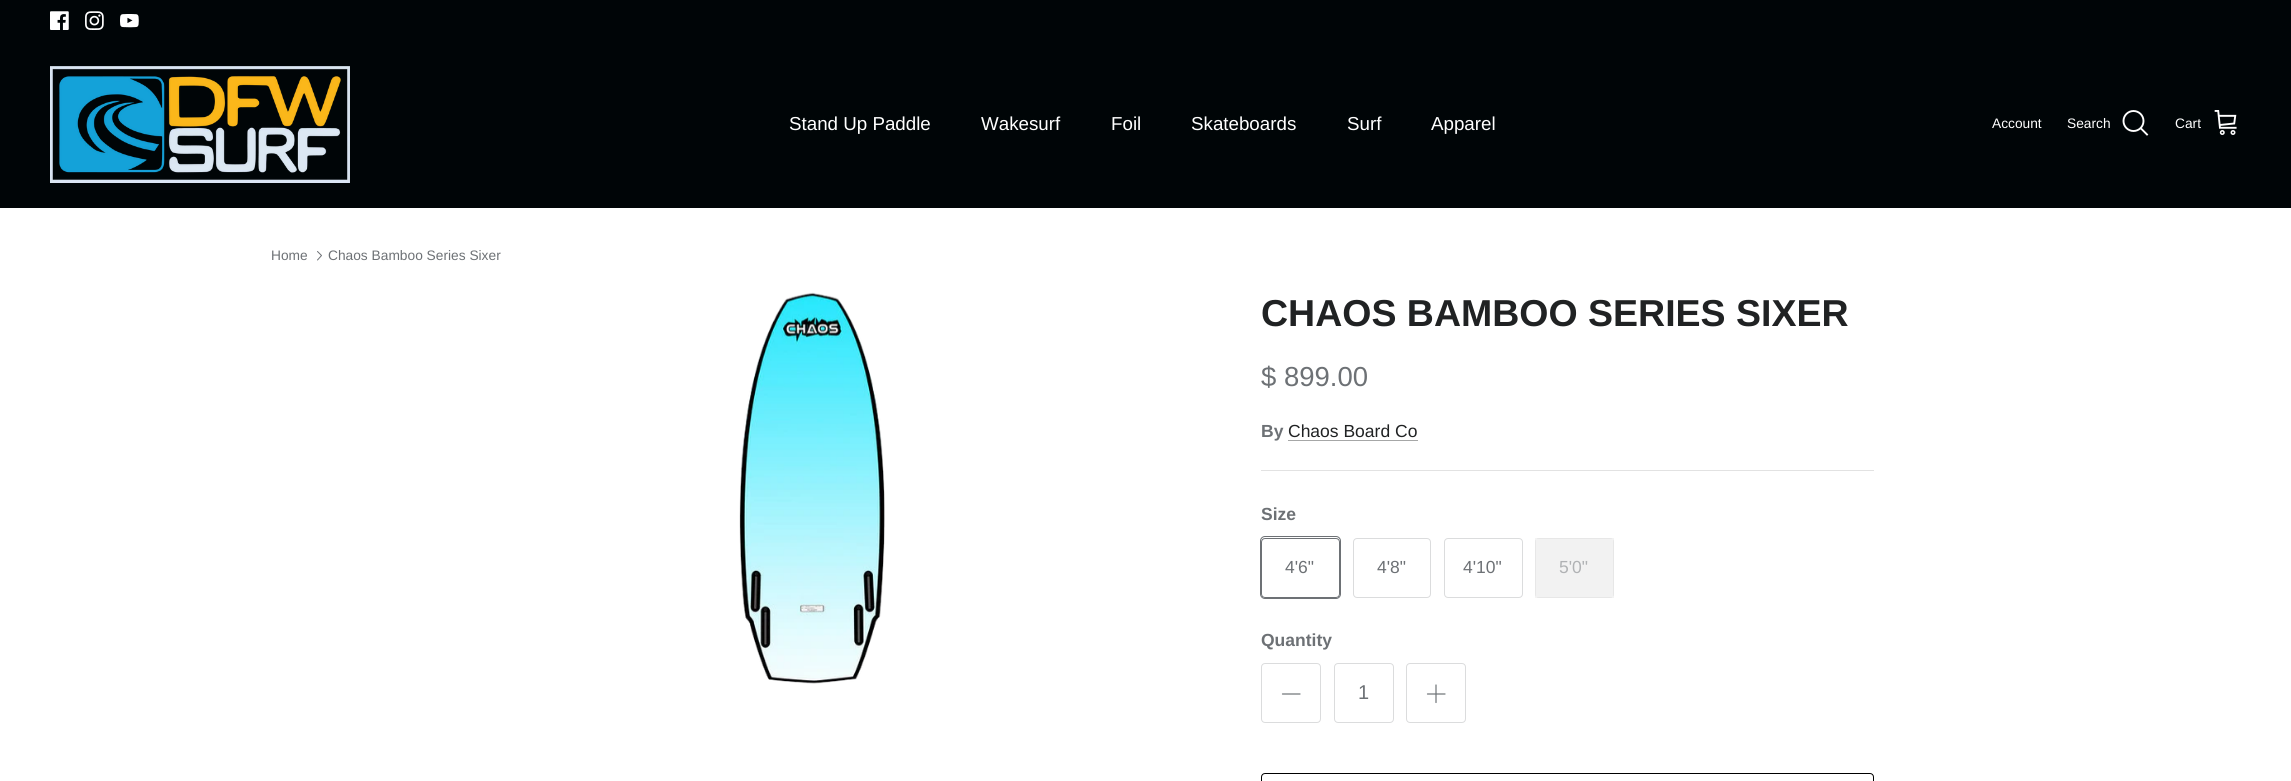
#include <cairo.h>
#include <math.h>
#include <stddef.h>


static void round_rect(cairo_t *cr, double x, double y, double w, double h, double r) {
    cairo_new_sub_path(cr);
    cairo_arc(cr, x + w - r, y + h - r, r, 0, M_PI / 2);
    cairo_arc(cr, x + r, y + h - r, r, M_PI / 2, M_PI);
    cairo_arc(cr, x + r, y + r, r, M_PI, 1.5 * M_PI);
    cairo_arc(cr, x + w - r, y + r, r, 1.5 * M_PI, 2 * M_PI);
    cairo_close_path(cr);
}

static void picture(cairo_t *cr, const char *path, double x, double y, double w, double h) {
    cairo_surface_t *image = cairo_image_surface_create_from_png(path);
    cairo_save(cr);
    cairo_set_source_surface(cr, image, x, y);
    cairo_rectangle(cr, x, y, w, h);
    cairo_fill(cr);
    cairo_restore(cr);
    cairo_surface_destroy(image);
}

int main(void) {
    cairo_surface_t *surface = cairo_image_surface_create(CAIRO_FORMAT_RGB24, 2291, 781);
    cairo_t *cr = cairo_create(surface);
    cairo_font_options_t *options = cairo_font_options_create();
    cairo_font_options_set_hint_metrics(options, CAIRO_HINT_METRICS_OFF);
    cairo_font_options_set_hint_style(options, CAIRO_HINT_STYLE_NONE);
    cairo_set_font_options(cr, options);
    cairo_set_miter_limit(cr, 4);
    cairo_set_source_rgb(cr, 1, 1, 1);
    cairo_paint(cr);
    cairo_set_source_rgb(cr, 0, 0.02, 0.031);
    cairo_rectangle(cr, 0, 0, 2291, 208);
    cairo_fill(cr);
    picture(cr, "img1.png", 50, 11, 19, 19);
    picture(cr, "img2.png", 85, 11, 19, 19);
    picture(cr, "img3.png", 120, 14, 19, 14);
    picture(cr, "img4.png", 50, 66, 300, 117);
    cairo_select_font_face(cr, "Liberation Sans", CAIRO_FONT_SLANT_NORMAL, CAIRO_FONT_WEIGHT_NORMAL);
    cairo_set_font_size(cr, 18.75);
    cairo_set_source_rgb(cr, 1, 1, 1);
    cairo_move_to(cr, 789, 130);
    cairo_show_text(cr, "Stand Up Paddle");
    cairo_move_to(cr, 981, 130);
    cairo_show_text(cr, "Wakesurf");
    cairo_move_to(cr, 1111, 130);
    cairo_show_text(cr, "Foil");
    cairo_move_to(cr, 1191, 130);
    cairo_show_text(cr, "Skateboards");
    cairo_move_to(cr, 1347, 130);
    cairo_show_text(cr, "Surf");
    cairo_move_to(cr, 1431, 130);
    cairo_show_text(cr, "Apparel");
    cairo_set_font_size(cr, 13.75);
    cairo_move_to(cr, 1992, 128);
    cairo_show_text(cr, "Account");
    cairo_move_to(cr, 2067, 128);
    cairo_show_text(cr, "Search");
    cairo_new_path(cr);
    cairo_arc(cr, 2133.5, 121, 10, 0, 2 * M_PI);
    cairo_set_line_width(cr, 1.9);
    cairo_stroke(cr);
    cairo_new_path(cr);
    cairo_move_to(cr, 2141, 128.5);
    cairo_line_to(cr, 2147, 134.5);
    cairo_set_line_cap(cr, CAIRO_LINE_CAP_SQUARE);
    cairo_stroke(cr);
    cairo_move_to(cr, 2175, 128);
    cairo_show_text(cr, "Cart");
    picture(cr, "img5.png", 2214, 110, 23, 25);
    cairo_set_source_rgb(cr, 0.427, 0.443, 0.459);
    cairo_move_to(cr, 271, 260);
    cairo_show_text(cr, "Home");
    cairo_new_path(cr);
    cairo_move_to(cr, 317.5, 260);
    cairo_line_to(cr, 321.5, 255.5);
    cairo_line_to(cr, 317.5, 251.5);
    cairo_set_line_width(cr, 1);
    cairo_set_line_cap(cr, CAIRO_LINE_CAP_ROUND);
    cairo_set_line_join(cr, CAIRO_LINE_JOIN_ROUND);
    cairo_stroke(cr);
    cairo_move_to(cr, 328, 260);
    cairo_show_text(cr, "Chaos Bamboo Series Sixer");
    picture(cr, "img6.png", 739, 292, 146, 392);
    cairo_select_font_face(cr, "Liberation Sans", CAIRO_FONT_SLANT_NORMAL, CAIRO_FONT_WEIGHT_BOLD);
    cairo_set_font_size(cr, 37.5);
    cairo_set_source_rgb(cr, 0.125, 0.133, 0.137);
    cairo_move_to(cr, 1261, 326);
    cairo_show_text(cr, "CHAOS BAMBOO SERIES SIXER");
    cairo_select_font_face(cr, "Liberation Sans", CAIRO_FONT_SLANT_NORMAL, CAIRO_FONT_WEIGHT_NORMAL);
    cairo_set_font_size(cr, 27.5);
    cairo_set_source_rgb(cr, 0.427, 0.443, 0.459);
    cairo_move_to(cr, 1261, 386);
    cairo_show_text(cr, "$ 899.00");
    cairo_select_font_face(cr, "Liberation Sans", CAIRO_FONT_SLANT_NORMAL, CAIRO_FONT_WEIGHT_BOLD);
    cairo_set_font_size(cr, 17.5);
    cairo_move_to(cr, 1261, 437);
    cairo_show_text(cr, "By");
    cairo_select_font_face(cr, "Liberation Sans", CAIRO_FONT_SLANT_NORMAL, CAIRO_FONT_WEIGHT_NORMAL);
    cairo_set_source_rgb(cr, 0.125, 0.133, 0.137);
    cairo_move_to(cr, 1288, 437);
    cairo_show_text(cr, "Chaos Board Co");
    cairo_set_source_rgb(cr, 0.651, 0.655, 0.655);
    cairo_rectangle(cr, 1288, 440, 130, 1);
    cairo_fill(cr);
    cairo_set_source_rgb(cr, 0.886, 0.886, 0.886);
    cairo_rectangle(cr, 1261, 470, 613, 1);
    cairo_fill(cr);
    cairo_select_font_face(cr, "Liberation Sans", CAIRO_FONT_SLANT_NORMAL, CAIRO_FONT_WEIGHT_BOLD);
    cairo_set_source_rgb(cr, 0.427, 0.443, 0.459);
    cairo_move_to(cr, 1261, 520);
    cairo_show_text(cr, "Size");
    round_rect(cr, 1260.5, 536.5, 80, 62, 4.5);
    cairo_set_line_cap(cr, CAIRO_LINE_CAP_BUTT);
    cairo_set_line_join(cr, CAIRO_LINE_JOIN_MITER);
    cairo_stroke(cr);
    cairo_set_source_rgb(cr, 1, 1, 1);
    round_rect(cr, 1261.5, 538.5, 78, 59, 3.5);
    cairo_fill_preserve(cr);
    cairo_set_source_rgb(cr, 0.427, 0.443, 0.459);
    cairo_stroke(cr);
    cairo_select_font_face(cr, "Liberation Sans", CAIRO_FONT_SLANT_NORMAL, CAIRO_FONT_WEIGHT_NORMAL);
    cairo_move_to(cr, 1285, 573);
    cairo_show_text(cr, "4'6\"");
    round_rect(cr, 1353.5, 538.5, 77, 59, 3.5);
    cairo_set_source_rgb(cr, 0.859, 0.863, 0.867);
    cairo_stroke(cr);
    cairo_set_source_rgb(cr, 0.427, 0.443, 0.459);
    cairo_move_to(cr, 1377, 573);
    cairo_show_text(cr, "4'8\"");
    round_rect(cr, 1444.5, 538.5, 78, 59, 3.5);
    cairo_set_source_rgb(cr, 0.859, 0.863, 0.867);
    cairo_stroke(cr);
    cairo_set_source_rgb(cr, 0.427, 0.443, 0.459);
    cairo_move_to(cr, 1463, 573);
    cairo_show_text(cr, "4'10\"");
    cairo_set_source_rgb(cr, 0.949, 0.949, 0.949);
    round_rect(cr, 1535, 538, 79, 60, 4);
    cairo_fill(cr);
    cairo_rectangle(cr, 1535.5, 538.5, 78, 59);
    cairo_set_source_rgba(cr, 0, 0, 0, 0.05);
    cairo_stroke(cr);
    cairo_set_source_rgb(cr, 0.69, 0.698, 0.706);
    cairo_move_to(cr, 1559, 573);
    cairo_show_text(cr, "5'0\"");
    cairo_select_font_face(cr, "Liberation Sans", CAIRO_FONT_SLANT_NORMAL, CAIRO_FONT_WEIGHT_BOLD);
    cairo_set_source_rgb(cr, 0.427, 0.443, 0.459);
    cairo_move_to(cr, 1261, 646);
    cairo_show_text(cr, "Quantity");
    round_rect(cr, 1261.5, 663.5, 59, 59, 3.5);
    cairo_set_source_rgb(cr, 0.859, 0.863, 0.867);
    cairo_stroke(cr);
    cairo_new_path(cr);
    cairo_move_to(cr, 1282.5, 694);
    cairo_line_to(cr, 1300, 694);
    cairo_set_source_rgb(cr, 0.427, 0.443, 0.459);
    cairo_set_line_width(cr, 1.2);
    cairo_set_line_cap(cr, CAIRO_LINE_CAP_ROUND);
    cairo_set_line_join(cr, CAIRO_LINE_JOIN_ROUND);
    cairo_stroke(cr);
    round_rect(cr, 1334.5, 663.5, 59, 59, 3.5);
    cairo_set_source_rgb(cr, 0.859, 0.863, 0.867);
    cairo_set_line_width(cr, 1);
    cairo_set_line_cap(cr, CAIRO_LINE_CAP_BUTT);
    cairo_set_line_join(cr, CAIRO_LINE_JOIN_MITER);
    cairo_stroke(cr);
    cairo_select_font_face(cr, "Liberation Sans", CAIRO_FONT_SLANT_NORMAL, CAIRO_FONT_WEIGHT_NORMAL);
    cairo_set_font_size(cr, 20);
    cairo_set_source_rgb(cr, 0.427, 0.443, 0.459);
    cairo_move_to(cr, 1358, 699);
    cairo_show_text(cr, "1");
    round_rect(cr, 1406.5, 663.5, 59, 59, 3.5);
    cairo_set_source_rgb(cr, 0.859, 0.863, 0.867);
    cairo_stroke(cr);
    cairo_new_path(cr);
    cairo_move_to(cr, 1436, 685);
    cairo_line_to(cr, 1436, 702.5);
    cairo_move_to(cr, 1427.5, 694);
    cairo_line_to(cr, 1445, 694);
    cairo_set_source_rgb(cr, 0.427, 0.443, 0.459);
    cairo_set_line_width(cr, 1.2);
    cairo_set_line_cap(cr, CAIRO_LINE_CAP_ROUND);
    cairo_set_line_join(cr, CAIRO_LINE_JOIN_ROUND);
    cairo_stroke(cr);
    round_rect(cr, 1261.5, 773.5, 612, 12, 3.5);
    cairo_set_source_rgb(cr, 0, 0, 0);
    cairo_set_line_width(cr, 1);
    cairo_set_line_cap(cr, CAIRO_LINE_CAP_BUTT);
    cairo_set_line_join(cr, CAIRO_LINE_JOIN_MITER);
    cairo_stroke(cr);
    cairo_surface_write_to_png(surface, "page.png");
    cairo_font_options_destroy(options);
    cairo_destroy(cr);
    cairo_surface_destroy(surface);
    return 0;
}
